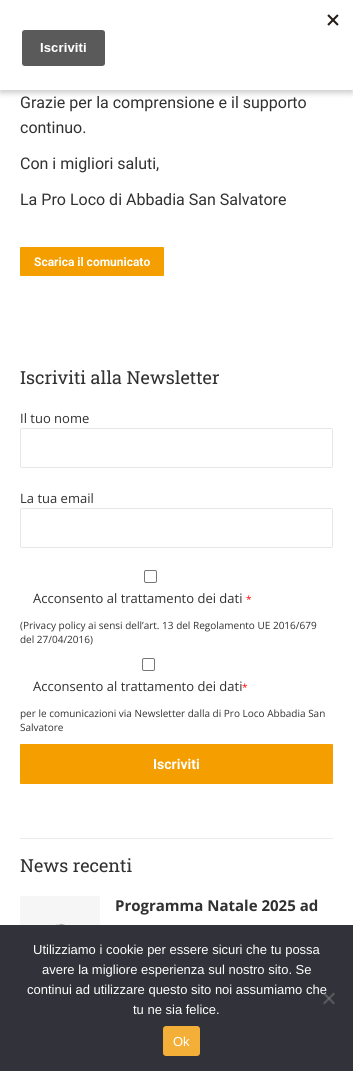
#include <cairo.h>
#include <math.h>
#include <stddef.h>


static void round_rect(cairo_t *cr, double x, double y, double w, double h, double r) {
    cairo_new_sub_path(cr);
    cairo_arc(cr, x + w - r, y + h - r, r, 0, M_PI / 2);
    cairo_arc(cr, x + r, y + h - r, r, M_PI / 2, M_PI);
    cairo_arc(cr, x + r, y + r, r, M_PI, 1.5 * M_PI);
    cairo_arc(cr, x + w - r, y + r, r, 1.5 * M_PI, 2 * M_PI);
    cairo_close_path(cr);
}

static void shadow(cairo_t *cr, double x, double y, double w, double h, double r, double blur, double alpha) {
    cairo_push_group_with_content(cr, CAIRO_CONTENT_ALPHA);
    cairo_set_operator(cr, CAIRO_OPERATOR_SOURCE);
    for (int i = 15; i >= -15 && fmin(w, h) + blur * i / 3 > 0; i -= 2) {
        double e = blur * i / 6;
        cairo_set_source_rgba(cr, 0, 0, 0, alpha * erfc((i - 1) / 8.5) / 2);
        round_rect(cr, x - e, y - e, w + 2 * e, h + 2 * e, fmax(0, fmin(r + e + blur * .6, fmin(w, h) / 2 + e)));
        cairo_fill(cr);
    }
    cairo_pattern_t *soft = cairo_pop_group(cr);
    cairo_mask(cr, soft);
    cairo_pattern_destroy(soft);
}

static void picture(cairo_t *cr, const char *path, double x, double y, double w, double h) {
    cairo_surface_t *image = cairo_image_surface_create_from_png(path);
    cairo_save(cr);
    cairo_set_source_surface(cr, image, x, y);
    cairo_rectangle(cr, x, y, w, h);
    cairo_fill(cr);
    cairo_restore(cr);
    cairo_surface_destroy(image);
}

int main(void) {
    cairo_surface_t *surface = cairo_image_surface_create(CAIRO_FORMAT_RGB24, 353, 1071);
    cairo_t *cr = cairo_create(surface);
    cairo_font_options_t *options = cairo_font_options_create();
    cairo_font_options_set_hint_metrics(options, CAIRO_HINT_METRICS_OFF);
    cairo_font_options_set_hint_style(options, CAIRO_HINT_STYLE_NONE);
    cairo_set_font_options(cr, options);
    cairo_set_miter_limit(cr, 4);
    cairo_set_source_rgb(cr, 1, 1, 1);
    cairo_paint(cr);
    cairo_set_source_rgb(cr, 0, 0, 0);
    shadow(cr, 0, 3, 353, 90, 0, 3, 0.2);
    cairo_set_source_rgb(cr, 1, 1, 1);
    cairo_rectangle(cr, 0, 0, 353, 90);
    cairo_fill(cr);
    picture(cr, "img1.png", 22, 14, 317, 52);
    cairo_select_font_face(cr, "Roboto", CAIRO_FONT_SLANT_NORMAL, CAIRO_FONT_WEIGHT_NORMAL);
    cairo_set_font_size(cr, 16);
    cairo_set_source_rgb(cr, 0.192, 0.192, 0.192);
    cairo_move_to(cr, 20, 108);
    cairo_show_text(cr, "Grazie per la comprensione e il supporto");
    cairo_move_to(cr, 20, 133);
    cairo_show_text(cr, "continuo.");
    cairo_move_to(cr, 20, 169);
    cairo_show_text(cr, "Con i migliori saluti,");
    cairo_move_to(cr, 20, 205);
    cairo_show_text(cr, "La Pro Loco di Abbadia San Salvatore");
    cairo_set_source_rgb(cr, 0.957, 0.62, 0);
    round_rect(cr, 20, 247, 144, 29, 1);
    cairo_fill(cr);
    cairo_select_font_face(cr, "Roboto", CAIRO_FONT_SLANT_NORMAL, CAIRO_FONT_WEIGHT_BOLD);
    cairo_set_font_size(cr, 12);
    cairo_set_source_rgb(cr, 1, 1, 1);
    cairo_move_to(cr, 34, 266);
    cairo_show_text(cr, "Scarica il comunicato");
    cairo_select_font_face(cr, "Roboto Slab", CAIRO_FONT_SLANT_NORMAL, CAIRO_FONT_WEIGHT_NORMAL);
    cairo_set_font_size(cr, 18);
    cairo_set_source_rgb(cr, 0.192, 0.192, 0.192);
    cairo_move_to(cr, 20, 384);
    cairo_show_text(cr, "Iscriviti alla Newsletter");
    cairo_select_font_face(cr, "Open Sans", CAIRO_FONT_SLANT_NORMAL, CAIRO_FONT_WEIGHT_NORMAL);
    cairo_set_font_size(cr, 13);
    cairo_move_to(cr, 20, 423);
    cairo_show_text(cr, "Il tuo nome");
    round_rect(cr, 20.5, 428.5, 312, 39, 1.5);
    cairo_set_source_rgb(cr, 0.906, 0.906, 0.906);
    cairo_set_line_width(cr, 1);
    cairo_stroke(cr);
    cairo_set_source_rgb(cr, 0.192, 0.192, 0.192);
    cairo_move_to(cr, 20, 503);
    cairo_show_text(cr, "La tua email");
    round_rect(cr, 20.5, 508.5, 312, 39, 1.5);
    cairo_set_source_rgb(cr, 0.906, 0.906, 0.906);
    cairo_stroke(cr);
    round_rect(cr, 144.5, 570.5, 12, 12, 1.5);
    cairo_set_source_rgb(cr, 0.463, 0.463, 0.463);
    cairo_stroke(cr);
    cairo_set_source_rgb(cr, 0.192, 0.192, 0.192);
    cairo_move_to(cr, 33, 603);
    cairo_show_text(cr, "Acconsento al trattamento dei dati");
    cairo_set_font_size(cr, 10);
    cairo_set_source_rgb(cr, 1, 0, 0);
    cairo_move_to(cr, 246, 603);
    cairo_show_text(cr, "*");
    cairo_set_source_rgb(cr, 0.192, 0.192, 0.192);
    cairo_move_to(cr, 20, 629);
    cairo_show_text(cr, "(Privacy policy ai sensi dell’art. 13 del Regolamento UE 2016/679");
    cairo_move_to(cr, 20, 643);
    cairo_show_text(cr, "del 27/04/2016)");
    round_rect(cr, 142.5, 658.5, 12, 12, 1.5);
    cairo_set_source_rgb(cr, 0.463, 0.463, 0.463);
    cairo_stroke(cr);
    cairo_set_font_size(cr, 13);
    cairo_set_source_rgb(cr, 0.192, 0.192, 0.192);
    cairo_move_to(cr, 33, 691);
    cairo_show_text(cr, "Acconsento al trattamento dei dati");
    cairo_set_font_size(cr, 10);
    cairo_set_source_rgb(cr, 1, 0, 0);
    cairo_move_to(cr, 242, 691);
    cairo_show_text(cr, "*");
    cairo_set_source_rgb(cr, 0.192, 0.192, 0.192);
    cairo_move_to(cr, 20, 717);
    cairo_show_text(cr, "per le comunicazioni via Newsletter dalla di Pro Loco Abbadia San");
    cairo_move_to(cr, 20, 731);
    cairo_show_text(cr, "Salvatore");
    cairo_set_source_rgb(cr, 0.957, 0.62, 0);
    round_rect(cr, 20, 744, 313, 40, 1);
    cairo_fill(cr);
    cairo_select_font_face(cr, "Roboto", CAIRO_FONT_SLANT_NORMAL, CAIRO_FONT_WEIGHT_BOLD);
    cairo_set_font_size(cr, 14);
    cairo_set_source_rgb(cr, 1, 1, 1);
    cairo_move_to(cr, 153, 769);
    cairo_show_text(cr, "Iscriviti");
    cairo_set_source_rgb(cr, 0.922, 0.922, 0.922);
    cairo_rectangle(cr, 20, 838, 313, 1);
    cairo_fill(cr);
    cairo_select_font_face(cr, "Roboto Slab", CAIRO_FONT_SLANT_NORMAL, CAIRO_FONT_WEIGHT_NORMAL);
    cairo_set_font_size(cr, 18);
    cairo_set_source_rgb(cr, 0.192, 0.192, 0.192);
    cairo_move_to(cr, 20, 872);
    cairo_show_text(cr, "News recenti");
    cairo_set_source_rgb(cr, 0.961, 0.961, 0.961);
    cairo_rectangle(cr, 20, 896, 80, 29);
    cairo_fill(cr);
    cairo_arc(cr, 60, 936, 11.5, 0, 2 * M_PI);
    cairo_set_source_rgb(cr, 0.855, 0.855, 0.855);
    cairo_set_line_width(cr, 1.3);
    cairo_stroke(cr);
    cairo_new_path(cr);
    cairo_move_to(cr, 71.5, 936);
    cairo_curve_to(cr, 71.5, 929.5, 66.5, 924.5, 60, 924.5);
    cairo_set_source_rgba(cr, 0.192, 0.192, 0.192, 0.25);
    cairo_stroke(cr);
    cairo_select_font_face(cr, "Open Sans", CAIRO_FONT_SLANT_NORMAL, CAIRO_FONT_WEIGHT_BOLD);
    cairo_set_font_size(cr, 15);
    cairo_set_source_rgb(cr, 0.192, 0.192, 0.192);
    cairo_move_to(cr, 115, 911);
    cairo_show_text(cr, "Programma Natale 2025 ad");
    cairo_set_source_rgb(cr, 0.196, 0.196, 0.227);
    cairo_rectangle(cr, 0, 925, 353, 146);
    cairo_fill(cr);
    cairo_select_font_face(cr, "Liberation Sans", CAIRO_FONT_SLANT_NORMAL, CAIRO_FONT_WEIGHT_NORMAL);
    cairo_set_font_size(cr, 13);
    cairo_set_source_rgb(cr, 1, 1, 1);
    cairo_move_to(cr, 33, 954);
    cairo_show_text(cr, "Utilizziamo i cookie per essere sicuri che tu possa");
    cairo_move_to(cr, 42, 974);
    cairo_show_text(cr, "avere la migliore esperienza sul nostro sito. Se");
    cairo_move_to(cr, 27, 994);
    cairo_show_text(cr, "continui ad utilizzare questo sito noi assumiamo che");
    cairo_move_to(cr, 133, 1014);
    cairo_show_text(cr, "tu ne sia felice.");
    cairo_set_source_rgb(cr, 0.349, 0.349, 0.365);
    cairo_new_path(cr);
    cairo_move_to(cr, 333.5, 992.5);
    cairo_line_to(cr, 335, 994);
    cairo_line_to(cr, 324.5, 1004.5);
    cairo_line_to(cr, 323, 1003);
    cairo_close_path(cr);
    cairo_fill(cr);
    cairo_set_source_rgba(cr, 0.502, 0.502, 0.502, 0.5);
    cairo_new_path(cr);
    cairo_move_to(cr, 323, 994);
    cairo_line_to(cr, 324.5, 992.5);
    cairo_line_to(cr, 335, 1003);
    cairo_line_to(cr, 333.5, 1004.5);
    cairo_close_path(cr);
    cairo_fill(cr);
    cairo_set_source_rgb(cr, 0.957, 0.686, 0.22);
    round_rect(cr, 163, 1026, 37, 30, 3);
    cairo_fill(cr);
    cairo_set_source_rgb(cr, 1, 1, 1);
    cairo_move_to(cr, 173, 1046);
    cairo_show_text(cr, "Ok");
    cairo_surface_write_to_png(surface, "page.png");
    cairo_font_options_destroy(options);
    cairo_destroy(cr);
    cairo_surface_destroy(surface);
    return 0;
}
